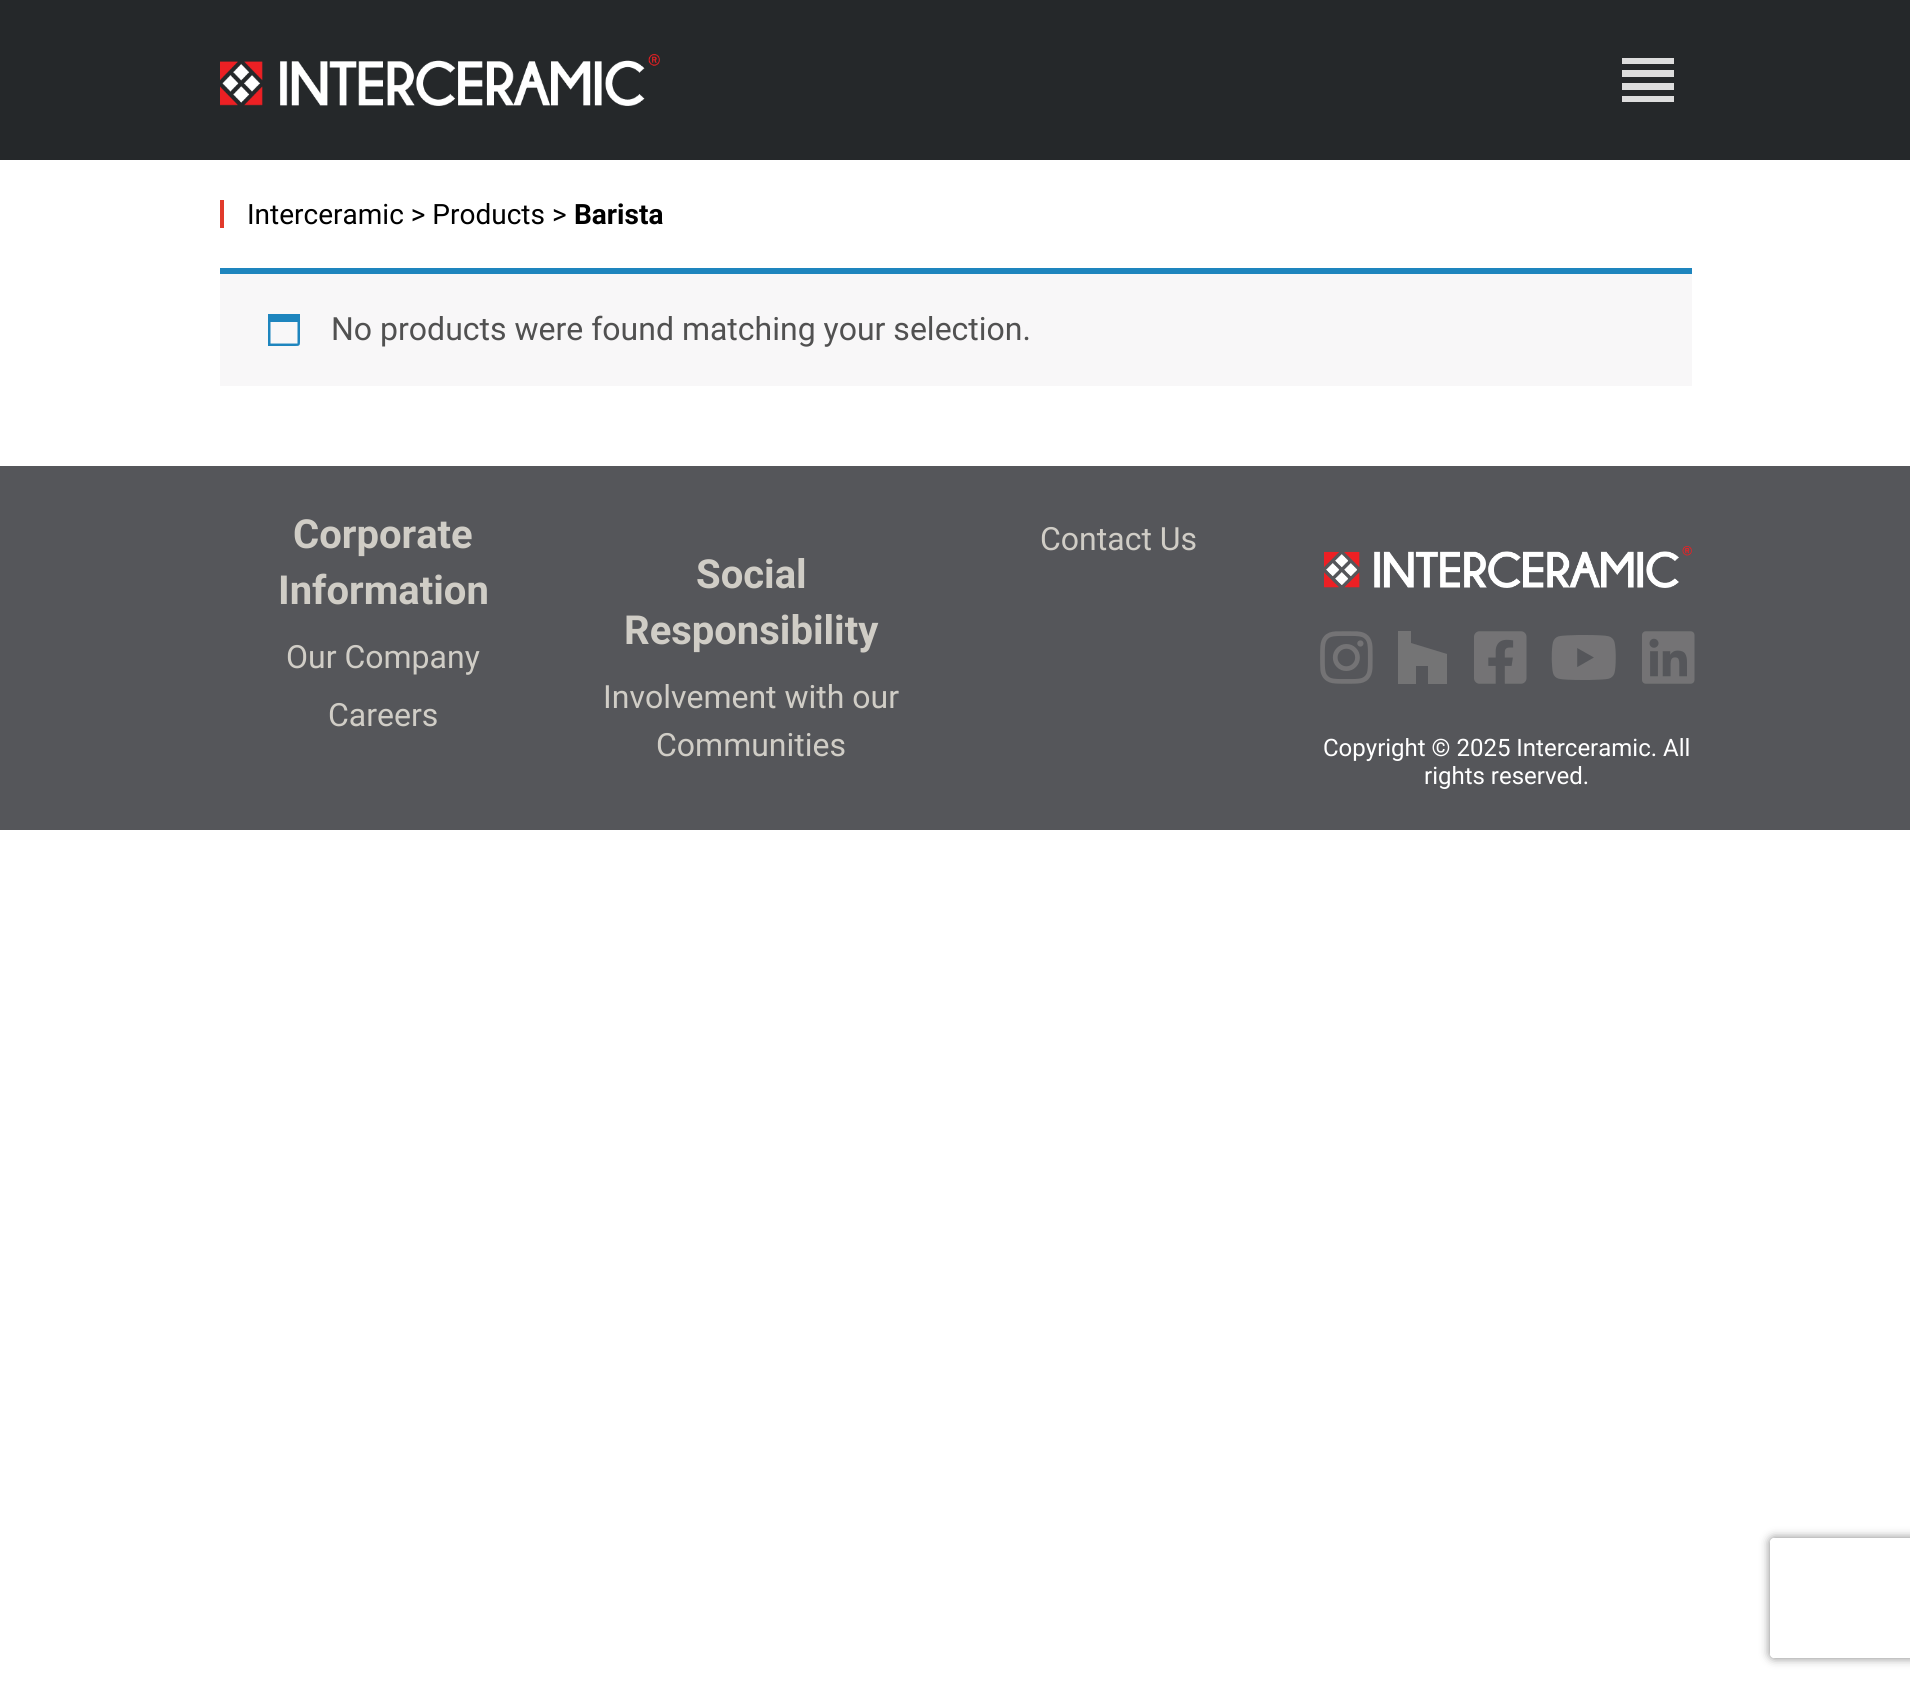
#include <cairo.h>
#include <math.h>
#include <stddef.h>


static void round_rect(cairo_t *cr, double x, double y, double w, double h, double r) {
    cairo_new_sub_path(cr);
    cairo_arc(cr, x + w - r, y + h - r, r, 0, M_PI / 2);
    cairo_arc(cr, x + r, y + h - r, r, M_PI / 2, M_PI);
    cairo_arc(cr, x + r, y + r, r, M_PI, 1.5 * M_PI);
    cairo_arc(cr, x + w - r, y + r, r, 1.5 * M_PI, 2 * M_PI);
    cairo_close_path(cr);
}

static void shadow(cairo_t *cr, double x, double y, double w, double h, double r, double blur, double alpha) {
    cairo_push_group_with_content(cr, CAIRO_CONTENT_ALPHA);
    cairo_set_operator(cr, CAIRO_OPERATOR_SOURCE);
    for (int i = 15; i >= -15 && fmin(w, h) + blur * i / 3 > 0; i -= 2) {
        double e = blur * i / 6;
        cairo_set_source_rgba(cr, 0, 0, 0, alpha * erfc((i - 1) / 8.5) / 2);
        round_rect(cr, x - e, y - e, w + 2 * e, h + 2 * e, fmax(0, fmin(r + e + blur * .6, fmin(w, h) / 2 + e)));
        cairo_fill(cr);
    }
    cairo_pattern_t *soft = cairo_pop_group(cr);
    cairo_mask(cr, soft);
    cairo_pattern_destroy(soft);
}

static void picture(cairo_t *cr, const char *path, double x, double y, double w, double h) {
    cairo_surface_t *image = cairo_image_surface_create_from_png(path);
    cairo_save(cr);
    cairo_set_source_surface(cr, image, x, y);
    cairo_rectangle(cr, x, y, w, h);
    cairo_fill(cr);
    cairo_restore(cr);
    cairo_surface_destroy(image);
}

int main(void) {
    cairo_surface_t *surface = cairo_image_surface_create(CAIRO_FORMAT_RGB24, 1910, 1686);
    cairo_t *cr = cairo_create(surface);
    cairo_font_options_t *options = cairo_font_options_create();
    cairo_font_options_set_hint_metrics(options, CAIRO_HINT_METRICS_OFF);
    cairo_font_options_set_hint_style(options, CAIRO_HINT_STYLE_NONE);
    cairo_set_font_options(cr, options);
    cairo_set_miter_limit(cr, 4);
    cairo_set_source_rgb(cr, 1, 1, 1);
    cairo_paint(cr);
    cairo_set_source_rgb(cr, 0.145, 0.157, 0.165);
    cairo_rectangle(cr, 0, 0, 1910, 160);
    cairo_fill(cr);
    picture(cr, "img1.png", 220, 54, 440, 52);
    cairo_set_source_rgb(cr, 0.867, 0.867, 0.867);
    cairo_new_path(cr);
    cairo_move_to(cr, 1622, 58);
    cairo_line_to(cr, 1674, 58);
    cairo_line_to(cr, 1674, 64);
    cairo_line_to(cr, 1622, 64);
    cairo_close_path(cr);
    cairo_move_to(cr, 1622, 70);
    cairo_line_to(cr, 1674, 70);
    cairo_line_to(cr, 1674, 77);
    cairo_line_to(cr, 1622, 77);
    cairo_close_path(cr);
    cairo_move_to(cr, 1622, 83);
    cairo_line_to(cr, 1674, 83);
    cairo_line_to(cr, 1674, 90);
    cairo_line_to(cr, 1622, 90);
    cairo_close_path(cr);
    cairo_move_to(cr, 1622, 96);
    cairo_line_to(cr, 1674, 96);
    cairo_line_to(cr, 1674, 102);
    cairo_line_to(cr, 1622, 102);
    cairo_close_path(cr);
    cairo_fill(cr);
    cairo_set_source_rgb(cr, 0.882, 0.227, 0.169);
    cairo_rectangle(cr, 220, 200, 4, 28);
    cairo_fill(cr);
    cairo_select_font_face(cr, "Roboto", CAIRO_FONT_SLANT_NORMAL, CAIRO_FONT_WEIGHT_NORMAL);
    cairo_set_font_size(cr, 28);
    cairo_set_source_rgb(cr, 0, 0, 0);
    cairo_move_to(cr, 247, 224);
    cairo_show_text(cr, "Interceramic > Products >");
    cairo_select_font_face(cr, "Roboto", CAIRO_FONT_SLANT_NORMAL, CAIRO_FONT_WEIGHT_BOLD);
    cairo_move_to(cr, 574, 224);
    cairo_show_text(cr, "Barista");
    cairo_set_source_rgb(cr, 0.969, 0.965, 0.969);
    cairo_rectangle(cr, 220, 274, 1472, 112);
    cairo_fill(cr);
    cairo_set_source_rgb(cr, 0.118, 0.522, 0.745);
    cairo_rectangle(cr, 220, 268, 1472, 6);
    cairo_fill(cr);
    cairo_new_path(cr);
    cairo_move_to(cr, 297.5, 322);
    cairo_line_to(cr, 270.5, 322);
    cairo_line_to(cr, 270.5, 343.5);
    cairo_line_to(cr, 297.5, 343.5);
    cairo_close_path(cr);
    cairo_move_to(cr, 300, 314);
    cairo_line_to(cr, 300, 338.5);
    cairo_curve_to(cr, 300, 346.5, 300.5, 346, 292.5, 346);
    cairo_line_to(cr, 268, 346);
    cairo_line_to(cr, 268, 314);
    cairo_close_path(cr);
    cairo_fill(cr);
    cairo_select_font_face(cr, "Roboto", CAIRO_FONT_SLANT_NORMAL, CAIRO_FONT_WEIGHT_NORMAL);
    cairo_set_font_size(cr, 32);
    cairo_set_source_rgb(cr, 0.318, 0.318, 0.318);
    cairo_move_to(cr, 331, 340);
    cairo_show_text(cr, "No products were found matching your selection.");
    cairo_set_source_rgb(cr, 0.333, 0.337, 0.353);
    cairo_rectangle(cr, 0, 466, 1910, 364);
    cairo_fill(cr);
    cairo_select_font_face(cr, "Roboto", CAIRO_FONT_SLANT_NORMAL, CAIRO_FONT_WEIGHT_BOLD);
    cairo_set_font_size(cr, 40);
    cairo_set_source_rgb(cr, 0.816, 0.804, 0.776);
    cairo_move_to(cr, 293, 548);
    cairo_show_text(cr, "Corporate");
    cairo_move_to(cr, 278, 604);
    cairo_show_text(cr, "Information");
    cairo_select_font_face(cr, "Roboto", CAIRO_FONT_SLANT_NORMAL, CAIRO_FONT_WEIGHT_NORMAL);
    cairo_set_font_size(cr, 32);
    cairo_move_to(cr, 286, 668);
    cairo_show_text(cr, "Our Company");
    cairo_move_to(cr, 328, 726);
    cairo_show_text(cr, "Careers");
    cairo_move_to(cr, 1040, 550);
    cairo_show_text(cr, "Contact Us");
    cairo_select_font_face(cr, "Roboto", CAIRO_FONT_SLANT_NORMAL, CAIRO_FONT_WEIGHT_BOLD);
    cairo_set_font_size(cr, 40);
    cairo_move_to(cr, 696, 588);
    cairo_show_text(cr, "Social");
    cairo_move_to(cr, 624, 644);
    cairo_show_text(cr, "Responsibility");
    cairo_select_font_face(cr, "Roboto", CAIRO_FONT_SLANT_NORMAL, CAIRO_FONT_WEIGHT_NORMAL);
    cairo_set_font_size(cr, 32);
    cairo_move_to(cr, 603, 708);
    cairo_show_text(cr, "Involvement with our");
    cairo_move_to(cr, 656, 756);
    cairo_show_text(cr, "Communities");
    picture(cr, "img2.png", 1324, 546, 368, 42);
    picture(cr, "img3.png", 1320, 631, 53, 53);
    cairo_set_source_rgb(cr, 0.455, 0.455, 0.459);
    cairo_new_path(cr);
    cairo_move_to(cr, 1428, 666);
    cairo_line_to(cr, 1416, 666);
    cairo_line_to(cr, 1416, 684);
    cairo_line_to(cr, 1398, 684);
    cairo_line_to(cr, 1398, 631);
    cairo_line_to(cr, 1411, 631);
    cairo_line_to(cr, 1411, 643);
    cairo_line_to(cr, 1447, 654);
    cairo_line_to(cr, 1447, 684);
    cairo_line_to(cr, 1428, 684);
    cairo_close_path(cr);
    cairo_fill(cr);
    picture(cr, "img4.png", 1474, 631, 53, 53);
    picture(cr, "img5.png", 1551, 635, 65, 45);
    picture(cr, "img6.png", 1642, 631, 53, 53);
    cairo_set_font_size(cr, 24);
    cairo_set_source_rgb(cr, 1, 1, 1);
    cairo_move_to(cr, 1323, 756);
    cairo_show_text(cr, "Copyright © 2025 Interceramic. All");
    cairo_move_to(cr, 1424, 784);
    cairo_show_text(cr, "rights reserved.");
    cairo_save(cr);
    cairo_set_fill_rule(cr, CAIRO_FILL_RULE_EVEN_ODD);
    cairo_new_path(cr);
    cairo_move_to(cr, 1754, 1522);
    cairo_line_to(cr, 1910, 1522);
    cairo_line_to(cr, 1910, 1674);
    cairo_line_to(cr, 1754, 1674);
    cairo_close_path(cr);
    cairo_move_to(cr, 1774, 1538);
    cairo_line_to(cr, 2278, 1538);
    cairo_curve_to(cr, 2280, 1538, 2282, 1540, 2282, 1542);
    cairo_line_to(cr, 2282, 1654);
    cairo_curve_to(cr, 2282, 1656, 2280, 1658, 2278, 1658);
    cairo_line_to(cr, 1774, 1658);
    cairo_curve_to(cr, 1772, 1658, 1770, 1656, 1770, 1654);
    cairo_line_to(cr, 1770, 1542);
    cairo_curve_to(cr, 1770, 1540, 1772, 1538, 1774, 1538);
    cairo_close_path(cr);
    cairo_clip(cr);
    cairo_set_source_rgb(cr, 0.502, 0.502, 0.502);
    shadow(cr, 1770, 1538, 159, 120, 4, 5, 1);
    cairo_restore(cr);
    cairo_surface_write_to_png(surface, "page.png");
    cairo_font_options_destroy(options);
    cairo_destroy(cr);
    cairo_surface_destroy(surface);
    return 0;
}
